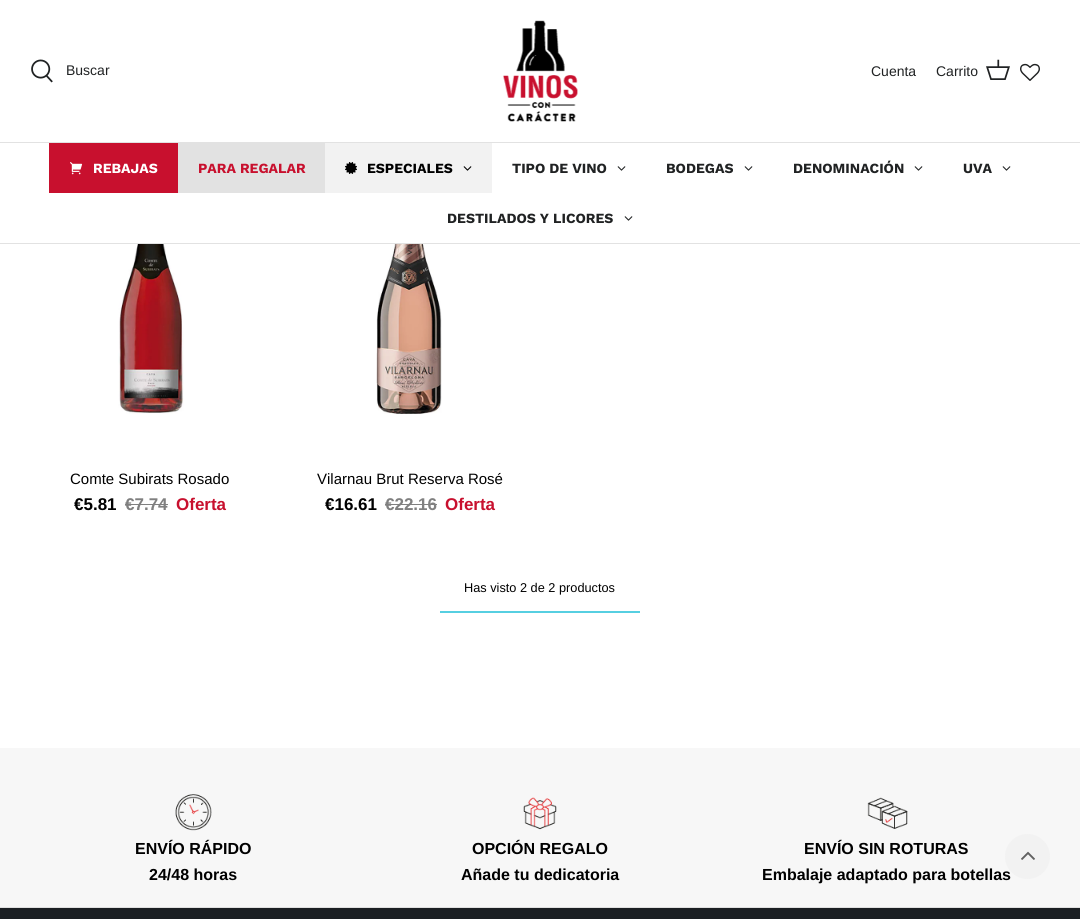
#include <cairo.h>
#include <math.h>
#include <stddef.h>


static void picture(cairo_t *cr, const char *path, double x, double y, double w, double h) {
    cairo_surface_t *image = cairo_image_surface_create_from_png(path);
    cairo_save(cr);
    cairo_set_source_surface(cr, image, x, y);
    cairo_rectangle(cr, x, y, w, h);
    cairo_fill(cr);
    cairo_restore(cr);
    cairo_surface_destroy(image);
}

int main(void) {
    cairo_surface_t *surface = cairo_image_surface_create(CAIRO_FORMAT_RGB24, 1080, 919);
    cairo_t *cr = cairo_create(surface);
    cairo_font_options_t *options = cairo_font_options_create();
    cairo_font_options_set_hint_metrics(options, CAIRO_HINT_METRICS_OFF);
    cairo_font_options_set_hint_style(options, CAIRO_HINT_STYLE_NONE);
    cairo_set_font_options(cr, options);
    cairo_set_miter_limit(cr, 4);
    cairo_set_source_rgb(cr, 1, 1, 1);
    cairo_paint(cr);
    cairo_set_source_rgb(cr, 0.886, 0.886, 0.886);
    cairo_rectangle(cr, 0, 142, 1080, 1);
    cairo_fill(cr);
    picture(cr, "img1.png", 31, 59, 22, 24);
    cairo_select_font_face(cr, "Liberation Sans", CAIRO_FONT_SLANT_NORMAL, CAIRO_FONT_WEIGHT_NORMAL);
    cairo_set_font_size(cr, 14);
    cairo_set_source_rgb(cr, 0.125, 0.133, 0.137);
    cairo_move_to(cr, 66, 75);
    cairo_show_text(cr, "Buscar");
    picture(cr, "img2.png", 503, 20, 75, 102);
    cairo_move_to(cr, 871, 76);
    cairo_show_text(cr, "Cuenta");
    cairo_move_to(cr, 936, 76);
    cairo_show_text(cr, "Carrito");
    picture(cr, "img3.png", 986, 59, 24, 21);
    picture(cr, "img4.png", 1020, 63, 20, 18);
    cairo_set_source_rgb(cr, 0.886, 0.886, 0.886);
    cairo_rectangle(cr, 0, 243, 1080, 1);
    cairo_fill(cr);
    cairo_set_source_rgb(cr, 0.784, 0.063, 0.18);
    cairo_rectangle(cr, 49, 143, 129, 50);
    cairo_fill(cr);
    picture(cr, "img5.png", 70, 162, 13, 13);
    cairo_select_font_face(cr, "Work Sans", CAIRO_FONT_SLANT_NORMAL, CAIRO_FONT_WEIGHT_BOLD);
    cairo_set_source_rgb(cr, 1, 1, 1);
    cairo_move_to(cr, 93, 173);
    cairo_show_text(cr, "REBAJAS");
    cairo_set_source_rgb(cr, 0.886, 0.886, 0.886);
    cairo_rectangle(cr, 178, 143, 147, 50);
    cairo_fill(cr);
    cairo_set_source_rgb(cr, 0.784, 0.063, 0.18);
    cairo_move_to(cr, 198, 173);
    cairo_show_text(cr, "PARA REGALAR");
    cairo_set_source_rgb(cr, 0.949, 0.949, 0.949);
    cairo_rectangle(cr, 325, 143, 167, 50);
    cairo_fill(cr);
    picture(cr, "img6.png", 345, 162, 12, 12);
    cairo_set_source_rgb(cr, 0, 0, 0);
    cairo_move_to(cr, 367, 173);
    cairo_show_text(cr, "ESPECIALES");
    picture(cr, "img7.png", 463, 166, 9, 5);
    cairo_set_source_rgb(cr, 0.125, 0.133, 0.137);
    cairo_move_to(cr, 512, 173);
    cairo_show_text(cr, "TIPO DE VINO");
    picture(cr, "img8.png", 617, 166, 9, 5);
    cairo_move_to(cr, 666, 173);
    cairo_show_text(cr, "BODEGAS");
    picture(cr, "img8.png", 744, 166, 9, 5);
    cairo_move_to(cr, 793, 173);
    cairo_show_text(cr, "DENOMINACIÓN");
    picture(cr, "img8.png", 914, 166, 9, 5);
    cairo_move_to(cr, 963, 173);
    cairo_show_text(cr, "UVA");
    picture(cr, "img8.png", 1002, 166, 9, 5);
    cairo_move_to(cr, 447, 223);
    cairo_show_text(cr, "DESTILADOS Y LICORES");
    picture(cr, "img8.png", 624, 216, 9, 5);
    picture(cr, "img9.png", 118, 244, 66, 170);
    cairo_select_font_face(cr, "Liberation Sans", CAIRO_FONT_SLANT_NORMAL, CAIRO_FONT_WEIGHT_NORMAL);
    cairo_set_font_size(cr, 15);
    cairo_set_source_rgb(cr, 0, 0, 0);
    cairo_move_to(cr, 70, 484);
    cairo_show_text(cr, "Comte Subirats Rosado");
    cairo_select_font_face(cr, "Liberation Sans", CAIRO_FONT_SLANT_NORMAL, CAIRO_FONT_WEIGHT_BOLD);
    cairo_set_font_size(cr, 17);
    cairo_move_to(cr, 74, 510);
    cairo_show_text(cr, "€5.81");
    cairo_set_source_rgb(cr, 0.502, 0.502, 0.502);
    cairo_move_to(cr, 125, 510);
    cairo_show_text(cr, "€7.74");
    cairo_rectangle(cr, 125, 504, 43, 1);
    cairo_fill(cr);
    cairo_set_source_rgb(cr, 0.784, 0.063, 0.18);
    cairo_move_to(cr, 176, 510);
    cairo_show_text(cr, "Oferta");
    picture(cr, "img10.png", 376, 244, 66, 170);
    cairo_select_font_face(cr, "Liberation Sans", CAIRO_FONT_SLANT_NORMAL, CAIRO_FONT_WEIGHT_NORMAL);
    cairo_set_font_size(cr, 15);
    cairo_set_source_rgb(cr, 0, 0, 0);
    cairo_move_to(cr, 317, 484);
    cairo_show_text(cr, "Vilarnau Brut Reserva Rosé");
    cairo_select_font_face(cr, "Liberation Sans", CAIRO_FONT_SLANT_NORMAL, CAIRO_FONT_WEIGHT_BOLD);
    cairo_set_font_size(cr, 17);
    cairo_move_to(cr, 325, 510);
    cairo_show_text(cr, "€16.61");
    cairo_set_source_rgb(cr, 0.502, 0.502, 0.502);
    cairo_move_to(cr, 385, 510);
    cairo_show_text(cr, "€22.16");
    cairo_rectangle(cr, 385, 504, 52, 1);
    cairo_fill(cr);
    cairo_set_source_rgb(cr, 0.784, 0.063, 0.18);
    cairo_move_to(cr, 445, 510);
    cairo_show_text(cr, "Oferta");
    cairo_select_font_face(cr, "Liberation Sans", CAIRO_FONT_SLANT_NORMAL, CAIRO_FONT_WEIGHT_NORMAL);
    cairo_set_font_size(cr, 12.75);
    cairo_set_source_rgb(cr, 0, 0, 0);
    cairo_move_to(cr, 464, 592);
    cairo_show_text(cr, "Has visto 2 de 2 productos");
    cairo_set_source_rgb(cr, 0.337, 0.812, 0.882);
    cairo_rectangle(cr, 440, 611, 200, 2);
    cairo_fill(cr);
    cairo_set_source_rgb(cr, 0.106, 0.122, 0.137);
    cairo_rectangle(cr, 0, 908, 1080, 11);
    cairo_fill(cr);
    cairo_set_source_rgb(cr, 0.965, 0.965, 0.965);
    cairo_rectangle(cr, 0, 748, 1080, 159);
    cairo_fill(cr);
    picture(cr, "img11.png", 175, 794, 37, 37);
    cairo_select_font_face(cr, "Liberation Sans", CAIRO_FONT_SLANT_NORMAL, CAIRO_FONT_WEIGHT_BOLD);
    cairo_set_font_size(cr, 16);
    cairo_set_source_rgb(cr, 0, 0, 0);
    cairo_move_to(cr, 135, 854);
    cairo_show_text(cr, "ENVÍO RÁPIDO");
    cairo_move_to(cr, 149, 880);
    cairo_show_text(cr, "24/48 horas");
    picture(cr, "img12.png", 523, 797, 34, 33);
    cairo_move_to(cr, 472, 854);
    cairo_show_text(cr, "OPCIÓN REGALO");
    cairo_move_to(cr, 461, 880);
    cairo_show_text(cr, "Añade tu dedicatoria");
    picture(cr, "img13.png", 867, 797, 41, 32);
    cairo_move_to(cr, 804, 854);
    cairo_show_text(cr, "ENVÍO SIN ROTURAS");
    cairo_move_to(cr, 762, 880);
    cairo_show_text(cr, "Embalaje adaptado para botellas");
    cairo_set_source_rgb(cr, 0.878, 0.878, 0.878);
    cairo_rectangle(cr, 0, 907, 1080, 1);
    cairo_fill(cr);
    cairo_set_source_rgb(cr, 0.949, 0.949, 0.949);
    cairo_arc(cr, 1027.5, 856.5, 22.5, 0, 2 * M_PI);
    cairo_fill(cr);
    picture(cr, "img14.png", 1021, 851, 14, 9);
    cairo_surface_write_to_png(surface, "page.png");
    cairo_font_options_destroy(options);
    cairo_destroy(cr);
    cairo_surface_destroy(surface);
    return 0;
}
